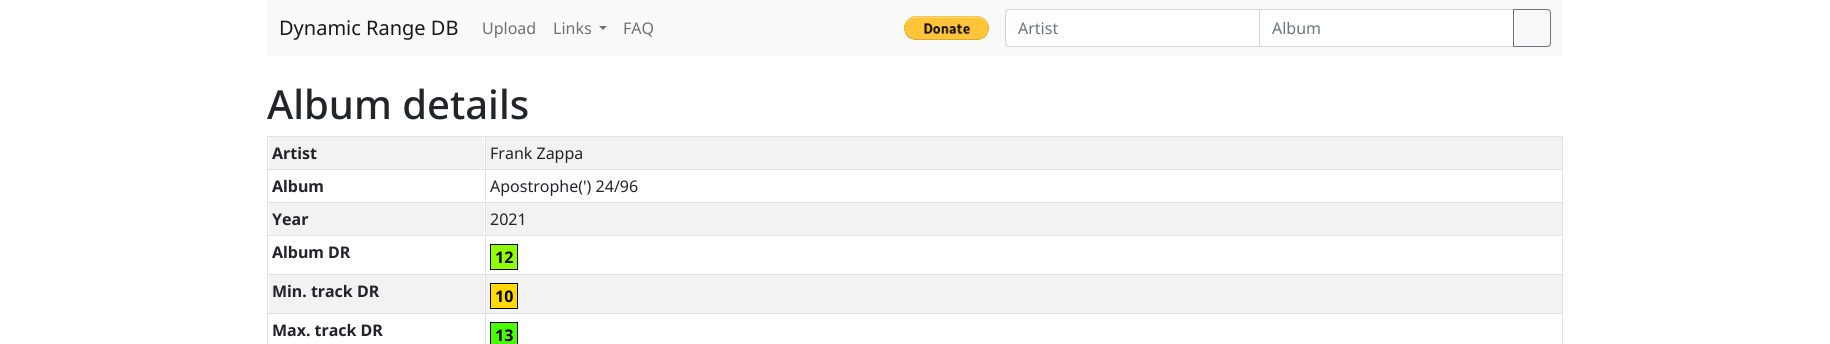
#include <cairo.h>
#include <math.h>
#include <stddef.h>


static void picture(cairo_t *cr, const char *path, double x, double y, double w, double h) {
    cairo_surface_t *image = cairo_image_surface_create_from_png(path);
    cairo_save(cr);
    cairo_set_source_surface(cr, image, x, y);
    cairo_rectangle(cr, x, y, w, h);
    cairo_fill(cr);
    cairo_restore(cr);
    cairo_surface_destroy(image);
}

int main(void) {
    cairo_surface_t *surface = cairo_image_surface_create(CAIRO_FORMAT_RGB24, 1830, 344);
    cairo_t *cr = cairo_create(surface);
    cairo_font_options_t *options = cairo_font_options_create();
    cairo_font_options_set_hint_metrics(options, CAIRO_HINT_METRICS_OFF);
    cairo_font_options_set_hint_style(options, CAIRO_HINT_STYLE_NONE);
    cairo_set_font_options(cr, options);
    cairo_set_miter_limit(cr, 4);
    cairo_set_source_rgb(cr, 1, 1, 1);
    cairo_paint(cr);
    cairo_set_source_rgb(cr, 0.973, 0.976, 0.98);
    cairo_rectangle(cr, 267, 0, 1296, 56);
    cairo_fill(cr);
    cairo_select_font_face(cr, "Noto Sans", CAIRO_FONT_SLANT_NORMAL, CAIRO_FONT_WEIGHT_NORMAL);
    cairo_set_font_size(cr, 20);
    cairo_set_source_rgb(cr, 0.098, 0.098, 0.098);
    cairo_move_to(cr, 279, 35);
    cairo_show_text(cr, "Dynamic Range DB");
    cairo_set_font_size(cr, 16);
    cairo_set_source_rgb(cr, 0.439, 0.439, 0.443);
    cairo_move_to(cr, 482, 34);
    cairo_show_text(cr, "Upload");
    cairo_move_to(cr, 553, 34);
    cairo_show_text(cr, "Links");
    cairo_new_path(cr);
    cairo_move_to(cr, 599, 26);
    cairo_line_to(cr, 607, 26);
    cairo_line_to(cr, 603, 30);
    cairo_close_path(cr);
    cairo_fill(cr);
    cairo_move_to(cr, 623, 34);
    cairo_show_text(cr, "FAQ");
    picture(cr, "img1.png", 904, 16, 85, 24);
    cairo_set_source_rgb(cr, 1, 1, 1);
    cairo_new_path(cr);
    cairo_move_to(cr, 1009, 9.5);
    cairo_line_to(cr, 1259.5, 9.5);
    cairo_line_to(cr, 1259.5, 46.5);
    cairo_line_to(cr, 1009, 46.5);
    cairo_curve_to(cr, 1007, 46.5, 1005.5, 45, 1005.5, 43);
    cairo_line_to(cr, 1005.5, 13);
    cairo_curve_to(cr, 1005.5, 11, 1007, 9.5, 1009, 9.5);
    cairo_close_path(cr);
    cairo_fill_preserve(cr);
    cairo_set_source_rgb(cr, 0.808, 0.831, 0.855);
    cairo_set_line_width(cr, 1);
    cairo_stroke(cr);
    cairo_set_source_rgb(cr, 0.424, 0.459, 0.49);
    cairo_move_to(cr, 1018, 34);
    cairo_show_text(cr, "Artist");
    cairo_set_source_rgb(cr, 1, 1, 1);
    cairo_rectangle(cr, 1259.5, 9.5, 254, 37);
    cairo_fill_preserve(cr);
    cairo_set_source_rgb(cr, 0.808, 0.831, 0.855);
    cairo_stroke(cr);
    cairo_set_source_rgb(cr, 0.424, 0.459, 0.49);
    cairo_move_to(cr, 1272, 34);
    cairo_show_text(cr, "Album");
    cairo_new_path(cr);
    cairo_move_to(cr, 1513.5, 9.5);
    cairo_line_to(cr, 1547, 9.5);
    cairo_curve_to(cr, 1549, 9.5, 1550.5, 11, 1550.5, 13);
    cairo_line_to(cr, 1550.5, 43);
    cairo_curve_to(cr, 1550.5, 45, 1549, 46.5, 1547, 46.5);
    cairo_line_to(cr, 1513.5, 46.5);
    cairo_close_path(cr);
    cairo_stroke(cr);
    cairo_select_font_face(cr, "Noto Sans Medium", CAIRO_FONT_SLANT_NORMAL, CAIRO_FONT_WEIGHT_NORMAL);
    cairo_set_font_size(cr, 40);
    cairo_set_source_rgb(cr, 0.129, 0.145, 0.161);
    cairo_move_to(cr, 267, 119);
    cairo_show_text(cr, "Album details");
    cairo_set_source_rgb(cr, 0.871, 0.886, 0.902);
    cairo_rectangle(cr, 267, 136, 1296, 1);
    cairo_fill(cr);
    cairo_set_source_rgb(cr, 0.949, 0.949, 0.949);
    cairo_rectangle(cr, 269, 137, 215, 32);
    cairo_fill(cr);
    cairo_select_font_face(cr, "Noto Sans", CAIRO_FONT_SLANT_NORMAL, CAIRO_FONT_WEIGHT_BOLD);
    cairo_set_font_size(cr, 16);
    cairo_set_source_rgb(cr, 0.129, 0.145, 0.161);
    cairo_move_to(cr, 272, 159);
    cairo_show_text(cr, "Artist");
    cairo_set_source_rgb(cr, 0.949, 0.949, 0.949);
    cairo_rectangle(cr, 486, 137, 1076, 32);
    cairo_fill(cr);
    cairo_select_font_face(cr, "Noto Sans", CAIRO_FONT_SLANT_NORMAL, CAIRO_FONT_WEIGHT_NORMAL);
    cairo_set_source_rgb(cr, 0.129, 0.145, 0.161);
    cairo_move_to(cr, 490, 159);
    cairo_show_text(cr, "Frank Zappa");
    cairo_set_source_rgb(cr, 0.871, 0.886, 0.902);
    cairo_rectangle(cr, 267, 169, 1296, 1);
    cairo_fill(cr);
    cairo_select_font_face(cr, "Noto Sans", CAIRO_FONT_SLANT_NORMAL, CAIRO_FONT_WEIGHT_BOLD);
    cairo_set_source_rgb(cr, 0.129, 0.145, 0.161);
    cairo_move_to(cr, 272, 192);
    cairo_show_text(cr, "Album");
    cairo_select_font_face(cr, "Noto Sans", CAIRO_FONT_SLANT_NORMAL, CAIRO_FONT_WEIGHT_NORMAL);
    cairo_move_to(cr, 490, 192);
    cairo_show_text(cr, "Apostrophe(') 24/96");
    cairo_set_source_rgb(cr, 0.871, 0.886, 0.902);
    cairo_rectangle(cr, 267, 202, 1296, 1);
    cairo_fill(cr);
    cairo_set_source_rgb(cr, 0.949, 0.949, 0.949);
    cairo_rectangle(cr, 269, 203, 215, 32);
    cairo_fill(cr);
    cairo_select_font_face(cr, "Noto Sans", CAIRO_FONT_SLANT_NORMAL, CAIRO_FONT_WEIGHT_BOLD);
    cairo_set_source_rgb(cr, 0.129, 0.145, 0.161);
    cairo_move_to(cr, 272, 225);
    cairo_show_text(cr, "Year");
    cairo_set_source_rgb(cr, 0.949, 0.949, 0.949);
    cairo_rectangle(cr, 486, 203, 1076, 32);
    cairo_fill(cr);
    cairo_select_font_face(cr, "Noto Sans", CAIRO_FONT_SLANT_NORMAL, CAIRO_FONT_WEIGHT_NORMAL);
    cairo_set_source_rgb(cr, 0.129, 0.145, 0.161);
    cairo_move_to(cr, 490, 225);
    cairo_show_text(cr, "2021");
    cairo_set_source_rgb(cr, 0.871, 0.886, 0.902);
    cairo_rectangle(cr, 267, 235, 1296, 1);
    cairo_fill(cr);
    cairo_select_font_face(cr, "Noto Sans", CAIRO_FONT_SLANT_NORMAL, CAIRO_FONT_WEIGHT_BOLD);
    cairo_set_source_rgb(cr, 0.129, 0.145, 0.161);
    cairo_move_to(cr, 272, 258);
    cairo_show_text(cr, "Album DR");
    cairo_set_source_rgb(cr, 0.565, 1, 0);
    cairo_rectangle(cr, 490.5, 244.5, 27, 25);
    cairo_fill_preserve(cr);
    cairo_set_source_rgb(cr, 0, 0, 0);
    cairo_stroke(cr);
    cairo_move_to(cr, 495, 263);
    cairo_show_text(cr, "12");
    cairo_set_source_rgb(cr, 0.871, 0.886, 0.902);
    cairo_rectangle(cr, 267, 274, 1296, 1);
    cairo_fill(cr);
    cairo_set_source_rgb(cr, 0.949, 0.949, 0.949);
    cairo_rectangle(cr, 269, 275, 215, 38);
    cairo_fill(cr);
    cairo_set_source_rgb(cr, 0.129, 0.145, 0.161);
    cairo_move_to(cr, 272, 297);
    cairo_show_text(cr, "Min. track DR");
    cairo_set_source_rgb(cr, 0.949, 0.949, 0.949);
    cairo_rectangle(cr, 486, 275, 1076, 38);
    cairo_fill(cr);
    cairo_set_source_rgb(cr, 1, 0.851, 0);
    cairo_rectangle(cr, 490.5, 283.5, 27, 25);
    cairo_fill_preserve(cr);
    cairo_set_source_rgb(cr, 0, 0, 0);
    cairo_stroke(cr);
    cairo_move_to(cr, 495, 302);
    cairo_show_text(cr, "10");
    cairo_set_source_rgb(cr, 0.871, 0.886, 0.902);
    cairo_rectangle(cr, 267, 313, 1296, 1);
    cairo_fill(cr);
    cairo_rectangle(cr, 267, 136, 1, 208);
    cairo_fill(cr);
    cairo_set_source_rgb(cr, 0.129, 0.145, 0.161);
    cairo_move_to(cr, 272, 336);
    cairo_show_text(cr, "Max. track DR");
    cairo_set_source_rgb(cr, 0.871, 0.886, 0.902);
    cairo_rectangle(cr, 1562, 136, 1, 208);
    cairo_fill(cr);
    cairo_rectangle(cr, 485, 136, 1, 208);
    cairo_fill(cr);
    cairo_set_source_rgb(cr, 0.282, 1, 0);
    cairo_rectangle(cr, 490.5, 322.5, 27, 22);
    cairo_fill_preserve(cr);
    cairo_set_source_rgb(cr, 0, 0, 0);
    cairo_stroke(cr);
    cairo_move_to(cr, 495, 341);
    cairo_show_text(cr, "13");
    cairo_surface_write_to_png(surface, "page.png");
    cairo_font_options_destroy(options);
    cairo_destroy(cr);
    cairo_surface_destroy(surface);
    return 0;
}
